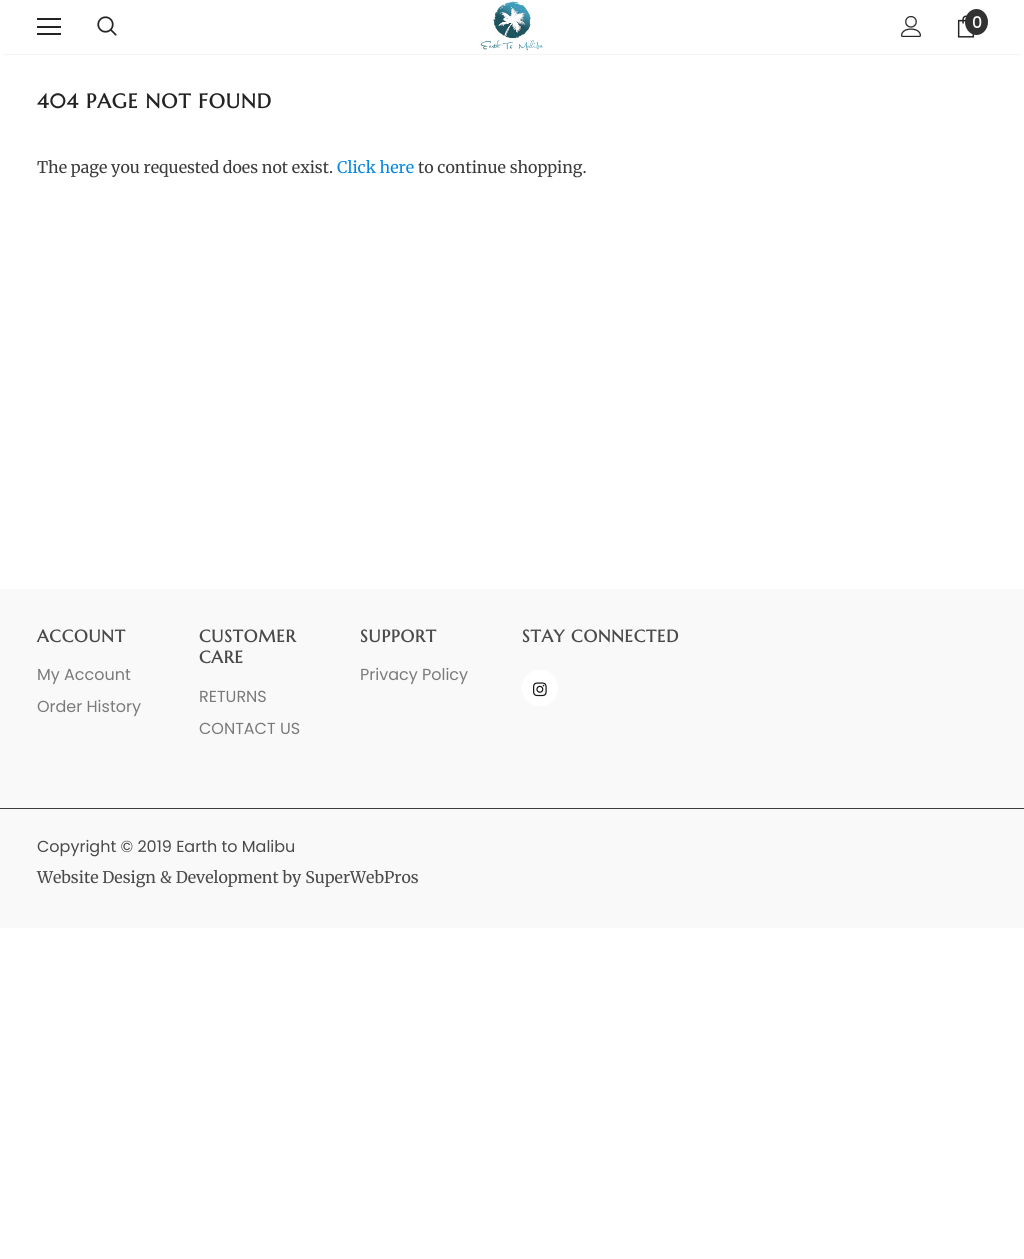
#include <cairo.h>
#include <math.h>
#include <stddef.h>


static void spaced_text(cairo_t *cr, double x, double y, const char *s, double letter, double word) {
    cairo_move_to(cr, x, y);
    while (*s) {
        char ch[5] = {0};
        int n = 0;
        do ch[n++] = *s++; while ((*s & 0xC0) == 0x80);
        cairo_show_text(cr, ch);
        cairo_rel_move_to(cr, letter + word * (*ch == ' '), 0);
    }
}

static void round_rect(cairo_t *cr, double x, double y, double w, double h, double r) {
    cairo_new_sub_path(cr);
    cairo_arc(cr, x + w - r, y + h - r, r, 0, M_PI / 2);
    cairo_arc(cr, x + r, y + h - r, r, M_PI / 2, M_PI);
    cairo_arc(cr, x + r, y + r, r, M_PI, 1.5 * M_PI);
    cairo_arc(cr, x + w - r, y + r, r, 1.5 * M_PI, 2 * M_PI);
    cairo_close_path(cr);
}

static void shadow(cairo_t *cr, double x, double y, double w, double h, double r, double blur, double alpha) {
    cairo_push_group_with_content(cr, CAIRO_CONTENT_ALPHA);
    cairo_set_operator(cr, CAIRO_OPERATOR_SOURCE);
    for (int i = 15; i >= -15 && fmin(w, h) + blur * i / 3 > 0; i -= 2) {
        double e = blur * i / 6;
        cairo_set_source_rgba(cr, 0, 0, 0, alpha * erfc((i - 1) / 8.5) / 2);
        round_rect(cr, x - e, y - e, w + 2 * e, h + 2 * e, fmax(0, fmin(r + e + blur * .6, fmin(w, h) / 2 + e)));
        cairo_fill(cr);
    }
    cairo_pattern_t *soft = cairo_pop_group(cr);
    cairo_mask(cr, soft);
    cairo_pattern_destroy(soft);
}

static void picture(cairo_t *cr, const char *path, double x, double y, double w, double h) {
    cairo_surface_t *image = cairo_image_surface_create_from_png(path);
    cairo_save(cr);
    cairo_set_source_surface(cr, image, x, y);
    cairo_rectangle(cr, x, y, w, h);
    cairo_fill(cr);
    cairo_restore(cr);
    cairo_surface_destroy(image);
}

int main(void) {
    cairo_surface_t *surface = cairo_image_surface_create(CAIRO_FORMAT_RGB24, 1024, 1259);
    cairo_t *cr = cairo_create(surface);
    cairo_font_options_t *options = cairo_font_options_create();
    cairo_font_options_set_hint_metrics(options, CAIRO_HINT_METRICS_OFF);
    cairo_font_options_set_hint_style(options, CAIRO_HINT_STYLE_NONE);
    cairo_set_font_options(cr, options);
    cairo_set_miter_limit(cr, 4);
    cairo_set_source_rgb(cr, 1, 1, 1);
    cairo_paint(cr);
    cairo_save(cr);
    cairo_rectangle(cr, 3, 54, 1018, 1);
    cairo_clip(cr);
    cairo_set_source_rgb(cr, 0, 0, 0);
    shadow(cr, 3, 6, 1018, 48, 0, 1.5, 0.12);
    cairo_restore(cr);
    cairo_set_source_rgb(cr, 0.137, 0.137, 0.137);
    cairo_rectangle(cr, 37, 18, 24, 2);
    cairo_fill(cr);
    cairo_rectangle(cr, 37, 26, 24, 2);
    cairo_fill(cr);
    cairo_rectangle(cr, 37, 33, 24, 2);
    cairo_fill(cr);
    picture(cr, "img1.png", 97, 16, 20, 20);
    picture(cr, "img2.png", 480, 1, 63, 50);
    picture(cr, "img3.png", 901, 16, 20, 21);
    picture(cr, "img4.png", 957, 15, 18, 23);
    cairo_set_source_rgb(cr, 0.196, 0.196, 0.196);
    cairo_new_path(cr);
    cairo_move_to(cr, 976.5, 9);
    cairo_curve_to(cr, 983, 9, 988, 15, 988, 22);
    cairo_curve_to(cr, 988, 29, 983, 35, 976.5, 35);
    cairo_curve_to(cr, 970, 35, 965, 29, 965, 22);
    cairo_curve_to(cr, 965, 15, 970, 9, 976.5, 9);
    cairo_close_path(cr);
    cairo_fill(cr);
    cairo_select_font_face(cr, "Poppins Medium", CAIRO_FONT_SLANT_NORMAL, CAIRO_FONT_WEIGHT_NORMAL);
    cairo_set_font_size(cr, 16);
    cairo_set_source_rgb(cr, 1, 1, 1);
    cairo_move_to(cr, 972, 28);
    cairo_show_text(cr, "0");
    cairo_select_font_face(cr, "Marcellus", CAIRO_FONT_SLANT_NORMAL, CAIRO_FONT_WEIGHT_BOLD);
    cairo_set_font_size(cr, 20);
    cairo_set_source_rgb(cr, 0.137, 0.137, 0.137);
    spaced_text(cr, 37, 108, "404 PAGE NOT FOUND", 1, 0);
    cairo_select_font_face(cr, "Merriweather Light", CAIRO_FONT_SLANT_NORMAL, CAIRO_FONT_WEIGHT_NORMAL);
    cairo_set_font_size(cr, 16);
    cairo_set_source_rgb(cr, 0.235, 0.235, 0.235);
    cairo_move_to(cr, 37, 173);
    cairo_show_text(cr, "The page you requested does not exist.");
    cairo_set_source_rgb(cr, 0.024, 0.533, 0.886);
    cairo_move_to(cr, 337, 173);
    cairo_show_text(cr, "Click here");
    cairo_set_source_rgb(cr, 0.235, 0.235, 0.235);
    cairo_move_to(cr, 418, 173);
    cairo_show_text(cr, "to continue shopping.");
    cairo_set_source_rgb(cr, 0.973, 0.973, 0.973);
    cairo_rectangle(cr, 0, 589, 1024, 339);
    cairo_fill(cr);
    cairo_select_font_face(cr, "Marcellus", CAIRO_FONT_SLANT_NORMAL, CAIRO_FONT_WEIGHT_BOLD);
    cairo_set_font_size(cr, 17);
    cairo_set_source_rgb(cr, 0.29, 0.29, 0.29);
    spaced_text(cr, 37, 642, "ACCOUNT", 0.8, 0);
    cairo_select_font_face(cr, "Poppins", CAIRO_FONT_SLANT_NORMAL, CAIRO_FONT_WEIGHT_NORMAL);
    cairo_set_font_size(cr, 16);
    cairo_set_source_rgb(cr, 0.478, 0.478, 0.478);
    cairo_move_to(cr, 37, 680);
    cairo_show_text(cr, "My Account");
    cairo_move_to(cr, 37, 712);
    cairo_show_text(cr, "Order History");
    cairo_select_font_face(cr, "Marcellus", CAIRO_FONT_SLANT_NORMAL, CAIRO_FONT_WEIGHT_BOLD);
    cairo_set_font_size(cr, 17);
    cairo_set_source_rgb(cr, 0.29, 0.29, 0.29);
    spaced_text(cr, 199, 642, "CUSTOMER", 0.8, 0);
    spaced_text(cr, 199, 663, "CARE", 0.8, 0);
    cairo_select_font_face(cr, "Poppins", CAIRO_FONT_SLANT_NORMAL, CAIRO_FONT_WEIGHT_NORMAL);
    cairo_set_font_size(cr, 16);
    cairo_set_source_rgb(cr, 0.478, 0.478, 0.478);
    cairo_move_to(cr, 199, 702);
    cairo_show_text(cr, "RETURNS");
    cairo_move_to(cr, 199, 734);
    cairo_show_text(cr, "CONTACT US");
    cairo_select_font_face(cr, "Marcellus", CAIRO_FONT_SLANT_NORMAL, CAIRO_FONT_WEIGHT_BOLD);
    cairo_set_font_size(cr, 17);
    cairo_set_source_rgb(cr, 0.29, 0.29, 0.29);
    spaced_text(cr, 360, 642, "SUPPORT", 0.8, 0);
    cairo_select_font_face(cr, "Poppins", CAIRO_FONT_SLANT_NORMAL, CAIRO_FONT_WEIGHT_NORMAL);
    cairo_set_font_size(cr, 16);
    cairo_set_source_rgb(cr, 0.478, 0.478, 0.478);
    cairo_move_to(cr, 360, 680);
    cairo_show_text(cr, "Privacy Policy");
    cairo_select_font_face(cr, "Marcellus", CAIRO_FONT_SLANT_NORMAL, CAIRO_FONT_WEIGHT_BOLD);
    cairo_set_font_size(cr, 17);
    cairo_set_source_rgb(cr, 0.29, 0.29, 0.29);
    spaced_text(cr, 522, 642, "STAY CONNECTED", 0.8, 0);
    cairo_set_source_rgb(cr, 1, 1, 1);
    cairo_new_path(cr);
    cairo_arc(cr, 540, 688, 18, 0, 2 * M_PI);
    cairo_fill(cr);
    picture(cr, "img5.png", 533, 682, 14, 15);
    cairo_set_source_rgb(cr, 0.231, 0.231, 0.231);
    cairo_rectangle(cr, 0, 808, 1024, 1);
    cairo_fill(cr);
    cairo_select_font_face(cr, "Poppins", CAIRO_FONT_SLANT_NORMAL, CAIRO_FONT_WEIGHT_NORMAL);
    cairo_set_font_size(cr, 16);
    cairo_set_source_rgb(cr, 0.29, 0.29, 0.29);
    cairo_move_to(cr, 37, 852);
    cairo_show_text(cr, "Copyright © 2019 Earth to Malibu");
    cairo_select_font_face(cr, "Merriweather Light", CAIRO_FONT_SLANT_NORMAL, CAIRO_FONT_WEIGHT_NORMAL);
    cairo_move_to(cr, 37, 883);
    cairo_show_text(cr, "Website Design & Development by SuperWebPros");
    cairo_surface_write_to_png(surface, "page.png");
    cairo_font_options_destroy(options);
    cairo_destroy(cr);
    cairo_surface_destroy(surface);
    return 0;
}
